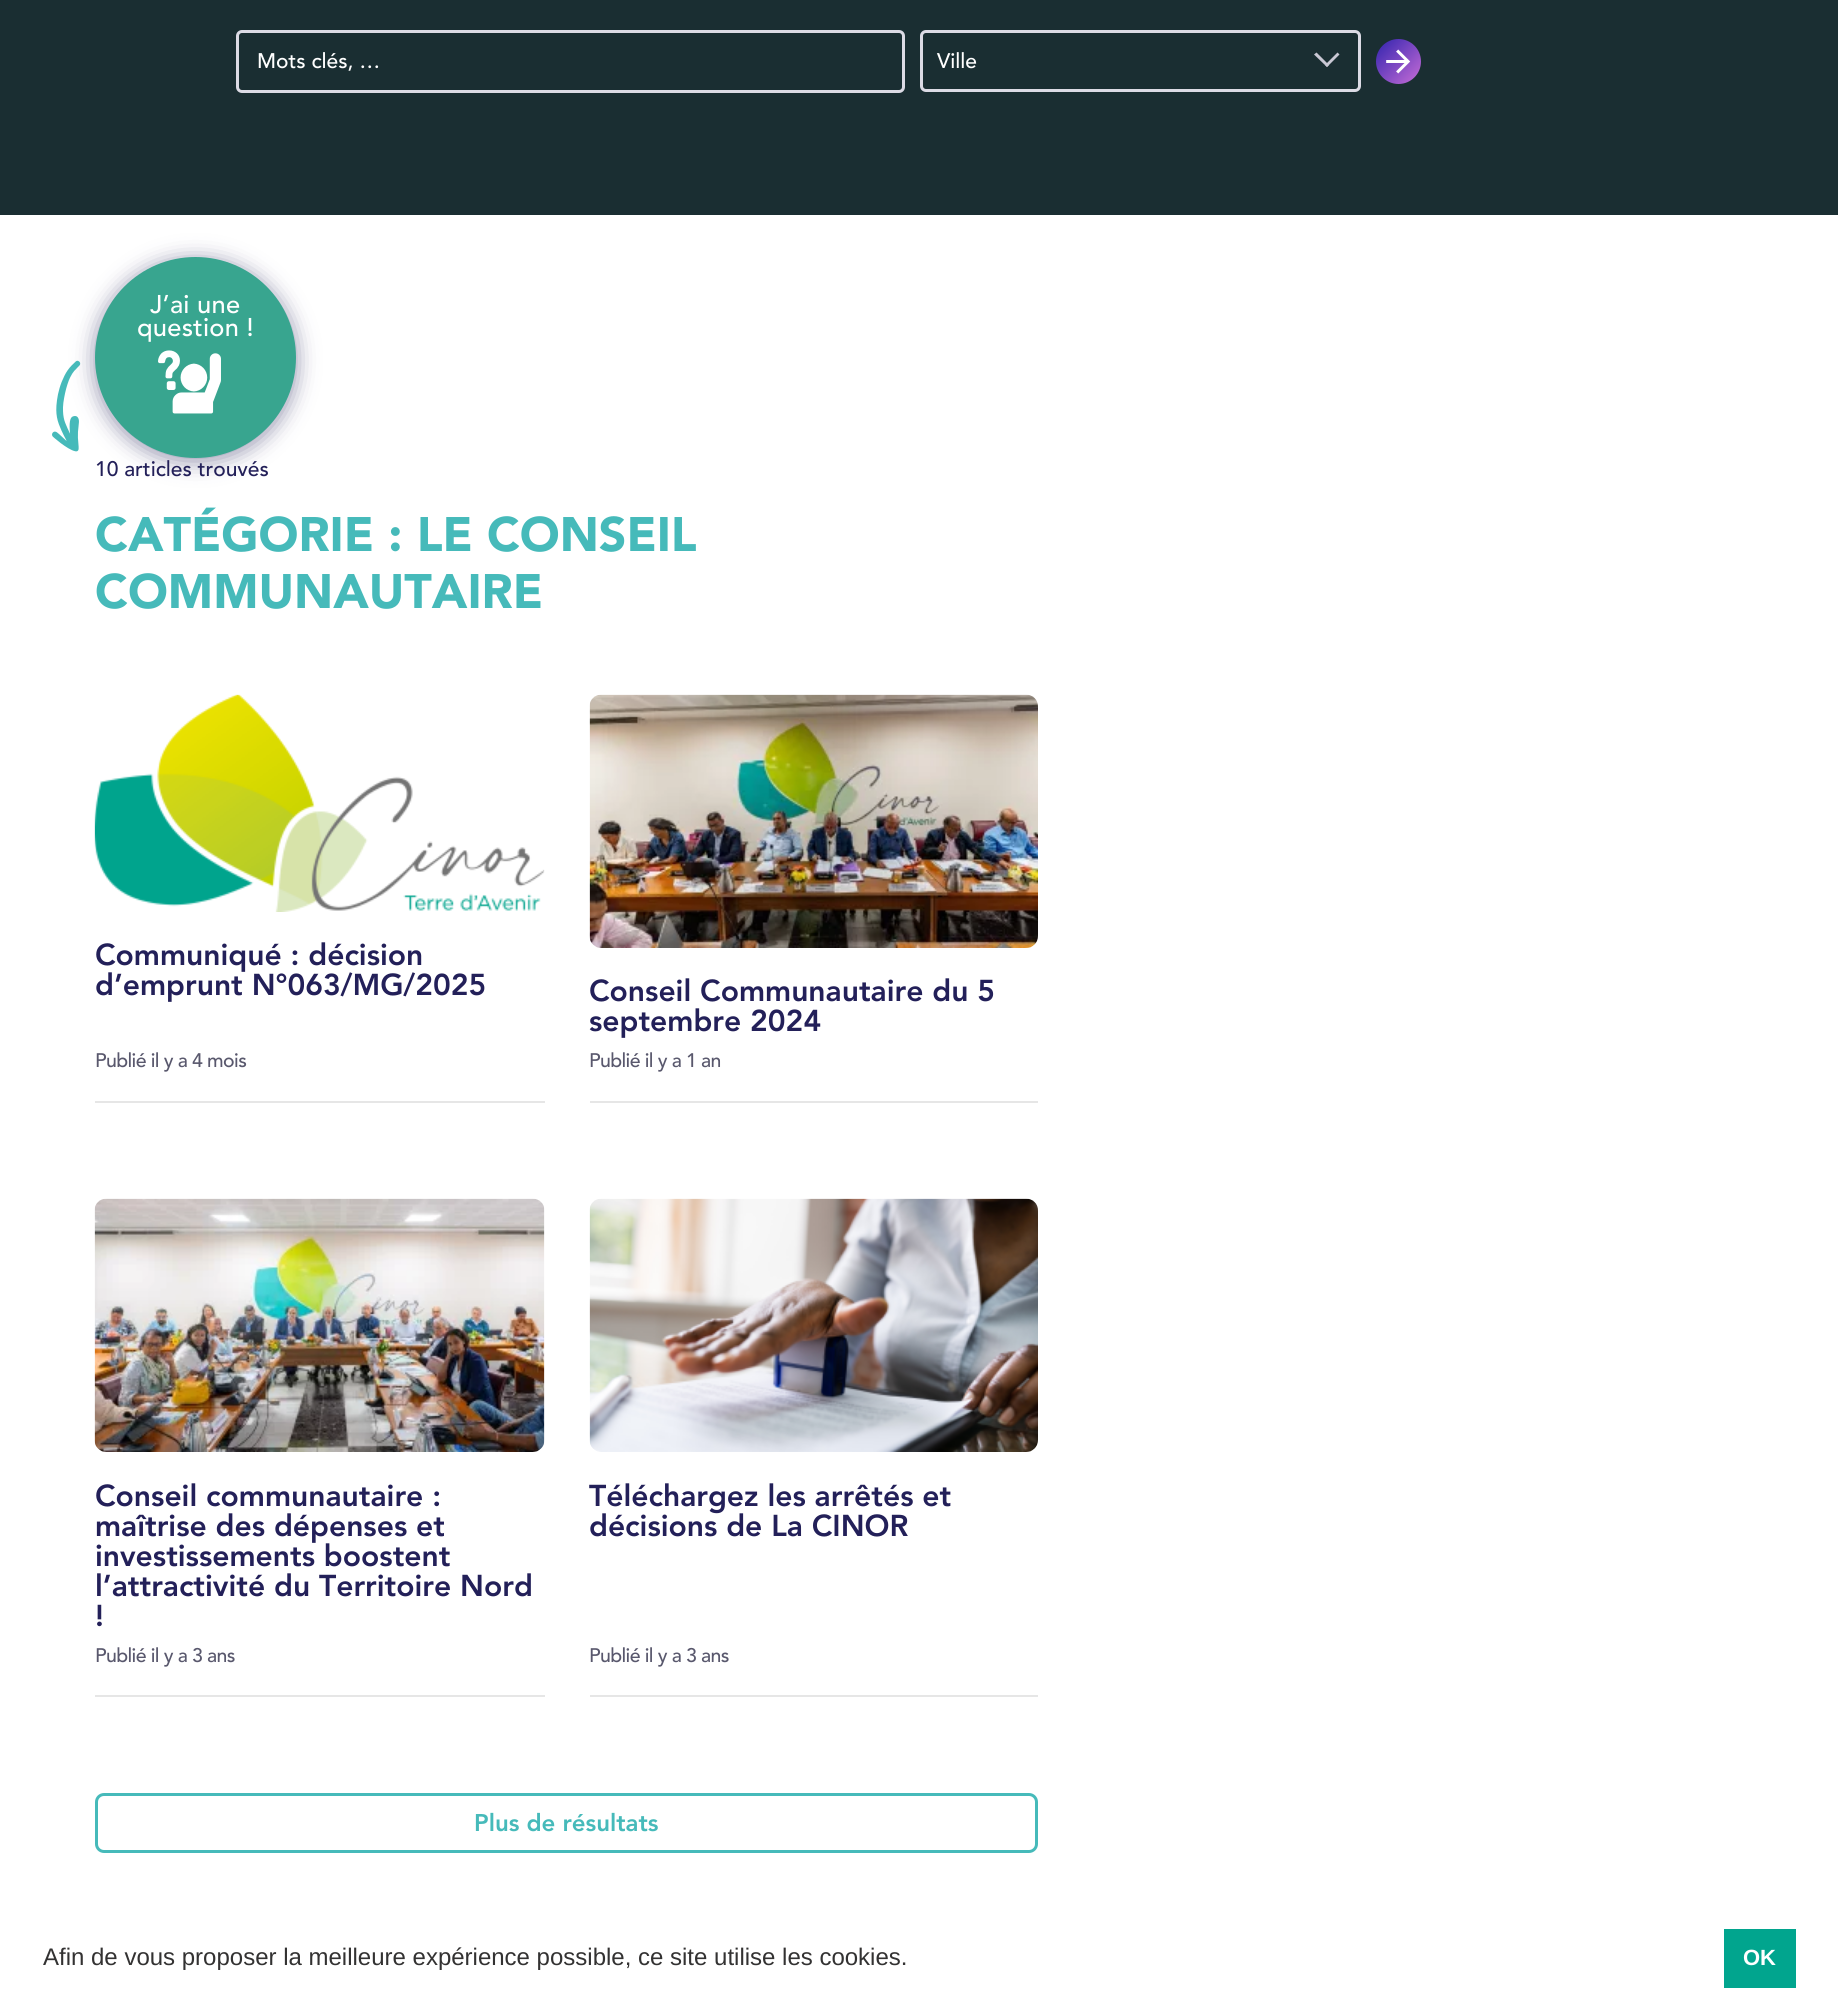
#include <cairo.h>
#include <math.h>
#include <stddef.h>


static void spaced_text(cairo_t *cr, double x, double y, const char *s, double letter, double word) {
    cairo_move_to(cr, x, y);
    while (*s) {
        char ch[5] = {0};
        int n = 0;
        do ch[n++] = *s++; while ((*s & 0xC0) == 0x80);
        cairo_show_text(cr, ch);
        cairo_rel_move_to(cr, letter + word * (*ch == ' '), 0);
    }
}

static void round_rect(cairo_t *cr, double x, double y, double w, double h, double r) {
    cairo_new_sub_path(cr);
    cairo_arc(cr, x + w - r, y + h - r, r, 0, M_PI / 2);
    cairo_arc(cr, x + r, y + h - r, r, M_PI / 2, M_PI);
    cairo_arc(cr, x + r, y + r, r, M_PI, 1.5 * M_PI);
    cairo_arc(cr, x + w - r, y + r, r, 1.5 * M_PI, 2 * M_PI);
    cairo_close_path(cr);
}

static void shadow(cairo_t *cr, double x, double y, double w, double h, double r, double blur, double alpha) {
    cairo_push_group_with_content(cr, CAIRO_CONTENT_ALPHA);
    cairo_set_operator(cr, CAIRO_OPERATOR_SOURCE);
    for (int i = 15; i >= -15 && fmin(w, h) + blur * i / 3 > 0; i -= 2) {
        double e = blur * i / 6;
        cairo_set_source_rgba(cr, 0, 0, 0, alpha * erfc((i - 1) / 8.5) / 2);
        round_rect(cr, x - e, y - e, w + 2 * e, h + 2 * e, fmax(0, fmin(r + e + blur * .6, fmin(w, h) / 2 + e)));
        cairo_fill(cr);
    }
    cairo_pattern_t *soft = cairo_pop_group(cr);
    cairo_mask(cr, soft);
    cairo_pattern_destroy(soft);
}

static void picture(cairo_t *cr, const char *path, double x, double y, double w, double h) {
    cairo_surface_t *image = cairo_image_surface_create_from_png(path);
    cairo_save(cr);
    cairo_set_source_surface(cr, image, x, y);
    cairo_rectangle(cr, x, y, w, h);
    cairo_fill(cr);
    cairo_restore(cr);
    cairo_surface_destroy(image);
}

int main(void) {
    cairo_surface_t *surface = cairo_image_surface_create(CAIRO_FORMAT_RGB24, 1838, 2011);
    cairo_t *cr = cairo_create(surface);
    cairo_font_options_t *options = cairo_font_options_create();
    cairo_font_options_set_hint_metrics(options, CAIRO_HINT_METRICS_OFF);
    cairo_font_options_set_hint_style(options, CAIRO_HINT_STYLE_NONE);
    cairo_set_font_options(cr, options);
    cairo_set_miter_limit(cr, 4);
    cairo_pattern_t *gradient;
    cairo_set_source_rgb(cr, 1, 1, 1);
    cairo_paint(cr);
    cairo_set_source_rgb(cr, 0.102, 0.18, 0.196);
    cairo_rectangle(cr, 0, 0, 1838, 215);
    cairo_fill(cr);
    round_rect(cr, 237.5, 31.5, 666, 60, 4.5);
    cairo_set_source_rgb(cr, 0.863, 0.859, 0.898);
    cairo_set_line_width(cr, 3);
    cairo_stroke(cr);
    cairo_select_font_face(cr, "Avenir Medium", CAIRO_FONT_SLANT_NORMAL, CAIRO_FONT_WEIGHT_NORMAL);
    cairo_set_font_size(cr, 21);
    cairo_set_source_rgb(cr, 1, 1, 1);
    cairo_move_to(cr, 257, 68);
    cairo_show_text(cr, "Mots clés, …");
    round_rect(cr, 921.5, 31.5, 438, 59, 4.5);
    cairo_set_source_rgb(cr, 0.863, 0.859, 0.898);
    cairo_stroke(cr);
    cairo_set_source_rgb(cr, 1, 1, 1);
    cairo_move_to(cr, 937, 68);
    cairo_show_text(cr, "Ville");
    cairo_set_source_rgb(cr, 0.788, 0.784, 0.831);
    cairo_new_path(cr);
    cairo_move_to(cr, 1325, 65);
    cairo_line_to(cr, 1337.5, 52.5);
    cairo_line_to(cr, 1339.5, 54.5);
    cairo_line_to(cr, 1327, 67);
    cairo_close_path(cr);
    cairo_fill(cr);
    cairo_new_path(cr);
    cairo_move_to(cr, 1314, 54.5);
    cairo_line_to(cr, 1316.5, 52.5);
    cairo_line_to(cr, 1329, 65);
    cairo_line_to(cr, 1327, 67);
    cairo_close_path(cr);
    cairo_fill(cr);
    gradient = cairo_pattern_create_linear(1376, 39, 1421, 84);
    cairo_pattern_add_color_stop_rgba(gradient, 0, 0.188, 0.137, 0.682, 1);
    cairo_pattern_add_color_stop_rgba(gradient, 1, 0.784, 0.427, 0.843, 1);
    cairo_set_source(cr, gradient);
    cairo_pattern_destroy(gradient);
    cairo_arc(cr, 1398.5, 61.5, 22.5, 0, 2 * M_PI);
    cairo_fill(cr);
    picture(cr, "img1.png", 1386, 49, 25, 25);
    cairo_set_source_rgb(cr, 0.137, 0.125, 0.349);
    shadow(cr, 95, 260, 201, 201, 100.5, 11, 0.5);
    cairo_set_source_rgb(cr, 0.22, 0.647, 0.561);
    cairo_arc(cr, 195.5, 357.5, 100.5, 0, 2 * M_PI);
    cairo_fill(cr);
    cairo_set_font_size(cr, 25.5);
    cairo_set_source_rgb(cr, 1, 1, 1);
    spaced_text(cr, 150, 313, "J’ai une", 0.25, 0);
    spaced_text(cr, 137, 336, "question !", 0.25, 0);
    picture(cr, "img2.png", 158, 350, 63, 64);
    picture(cr, "img3.png", 52, 360, 29, 92);
    cairo_set_font_size(cr, 21);
    cairo_set_source_rgb(cr, 0.137, 0.125, 0.349);
    cairo_move_to(cr, 95, 476);
    cairo_show_text(cr, "10 articles trouvés");
    cairo_select_font_face(cr, "Avenir Black", CAIRO_FONT_SLANT_NORMAL, CAIRO_FONT_WEIGHT_NORMAL);
    cairo_set_font_size(cr, 48);
    cairo_set_source_rgb(cr, 0.275, 0.729, 0.729);
    cairo_move_to(cr, 95, 551);
    cairo_show_text(cr, "CATÉGORIE : LE CONSEIL");
    cairo_move_to(cr, 95, 608);
    cairo_show_text(cr, "COMMUNAUTAIRE");
    picture(cr, "img4.png", 94, 694, 451, 218);
    cairo_select_font_face(cr, "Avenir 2 Black", CAIRO_FONT_SLANT_NORMAL, CAIRO_FONT_WEIGHT_NORMAL);
    cairo_set_font_size(cr, 30);
    cairo_set_source_rgb(cr, 0.137, 0.125, 0.349);
    cairo_move_to(cr, 95, 965);
    cairo_show_text(cr, "Communiqué : décision");
    cairo_move_to(cr, 95, 995);
    cairo_show_text(cr, "d’emprunt N°063/MG/2025");
    cairo_select_font_face(cr, "Avenir Medium", CAIRO_FONT_SLANT_NORMAL, CAIRO_FONT_WEIGHT_NORMAL);
    cairo_set_font_size(cr, 19.5);
    cairo_set_source_rgb(cr, 0.349, 0.345, 0.427);
    spaced_text(cr, 95, 1067, "Publié il y a 4 mois", -0.6, 0);
    cairo_set_source_rgb(cr, 0.902, 0.902, 0.902);
    cairo_rectangle(cr, 95, 1101, 450, 2);
    cairo_fill(cr);
    picture(cr, "img5.png", 589, 694, 449, 254);
    cairo_select_font_face(cr, "Avenir 2 Black", CAIRO_FONT_SLANT_NORMAL, CAIRO_FONT_WEIGHT_NORMAL);
    cairo_set_font_size(cr, 30);
    cairo_set_source_rgb(cr, 0.137, 0.125, 0.349);
    cairo_move_to(cr, 589, 1001);
    cairo_show_text(cr, "Conseil Communautaire du 5");
    cairo_move_to(cr, 589, 1031);
    cairo_show_text(cr, "septembre 2024");
    cairo_select_font_face(cr, "Avenir Medium", CAIRO_FONT_SLANT_NORMAL, CAIRO_FONT_WEIGHT_NORMAL);
    cairo_set_font_size(cr, 19.5);
    cairo_set_source_rgb(cr, 0.349, 0.345, 0.427);
    spaced_text(cr, 589, 1067, "Publié il y a 1 an", -0.6, 0);
    cairo_set_source_rgb(cr, 0.902, 0.902, 0.902);
    cairo_rectangle(cr, 590, 1101, 448, 2);
    cairo_fill(cr);
    picture(cr, "img6.png", 94, 1198, 451, 254);
    cairo_select_font_face(cr, "Avenir 2 Black", CAIRO_FONT_SLANT_NORMAL, CAIRO_FONT_WEIGHT_NORMAL);
    cairo_set_font_size(cr, 30);
    cairo_set_source_rgb(cr, 0.137, 0.125, 0.349);
    cairo_move_to(cr, 95, 1506);
    cairo_show_text(cr, "Conseil communautaire :");
    cairo_move_to(cr, 95, 1536);
    cairo_show_text(cr, "maîtrise des dépenses et");
    cairo_move_to(cr, 95, 1566);
    cairo_show_text(cr, "investissements boostent");
    cairo_move_to(cr, 95, 1596);
    cairo_show_text(cr, "l’attractivité du Territoire Nord");
    cairo_move_to(cr, 95, 1626);
    cairo_show_text(cr, "!");
    cairo_select_font_face(cr, "Avenir Medium", CAIRO_FONT_SLANT_NORMAL, CAIRO_FONT_WEIGHT_NORMAL);
    cairo_set_font_size(cr, 19.5);
    cairo_set_source_rgb(cr, 0.349, 0.345, 0.427);
    spaced_text(cr, 95, 1662, "Publié il y a 3 ans", -0.6, 0);
    cairo_set_source_rgb(cr, 0.902, 0.902, 0.902);
    cairo_rectangle(cr, 95, 1695, 450, 2);
    cairo_fill(cr);
    picture(cr, "img7.png", 589, 1198, 449, 254);
    cairo_select_font_face(cr, "Avenir 2 Black", CAIRO_FONT_SLANT_NORMAL, CAIRO_FONT_WEIGHT_NORMAL);
    cairo_set_font_size(cr, 30);
    cairo_set_source_rgb(cr, 0.137, 0.125, 0.349);
    cairo_move_to(cr, 589, 1506);
    cairo_show_text(cr, "Téléchargez les arrêtés et");
    cairo_move_to(cr, 589, 1536);
    cairo_show_text(cr, "décisions de La CINOR");
    cairo_select_font_face(cr, "Avenir Medium", CAIRO_FONT_SLANT_NORMAL, CAIRO_FONT_WEIGHT_NORMAL);
    cairo_set_font_size(cr, 19.5);
    cairo_set_source_rgb(cr, 0.349, 0.345, 0.427);
    spaced_text(cr, 589, 1662, "Publié il y a 3 ans", -0.6, 0);
    cairo_set_source_rgb(cr, 0.902, 0.902, 0.902);
    cairo_rectangle(cr, 590, 1695, 448, 2);
    cairo_fill(cr);
    round_rect(cr, 96.5, 1794.5, 940, 57, 7.5);
    cairo_set_source_rgb(cr, 0.275, 0.729, 0.729);
    cairo_stroke(cr);
    cairo_select_font_face(cr, "Avenir 2 Black", CAIRO_FONT_SLANT_NORMAL, CAIRO_FONT_WEIGHT_NORMAL);
    cairo_set_font_size(cr, 24);
    cairo_move_to(cr, 474, 1831);
    cairo_show_text(cr, "Plus de résultats");
    cairo_select_font_face(cr, "Liberation Sans", CAIRO_FONT_SLANT_NORMAL, CAIRO_FONT_WEIGHT_NORMAL);
    cairo_set_source_rgb(cr, 0.2, 0.196, 0.196);
    cairo_move_to(cr, 43, 1965);
    cairo_show_text(cr, "Afin de vous proposer la meilleure expérience possible, ce site utilise les cookies.");
    cairo_set_source_rgb(cr, 0.004, 0.647, 0.557);
    cairo_rectangle(cr, 1724, 1929, 72, 59);
    cairo_fill(cr);
    cairo_select_font_face(cr, "Liberation Sans", CAIRO_FONT_SLANT_NORMAL, CAIRO_FONT_WEIGHT_BOLD);
    cairo_set_font_size(cr, 22);
    cairo_set_source_rgb(cr, 1, 1, 1);
    cairo_move_to(cr, 1743, 1965);
    cairo_show_text(cr, "OK");
    cairo_surface_write_to_png(surface, "page.png");
    cairo_font_options_destroy(options);
    cairo_destroy(cr);
    cairo_surface_destroy(surface);
    return 0;
}
